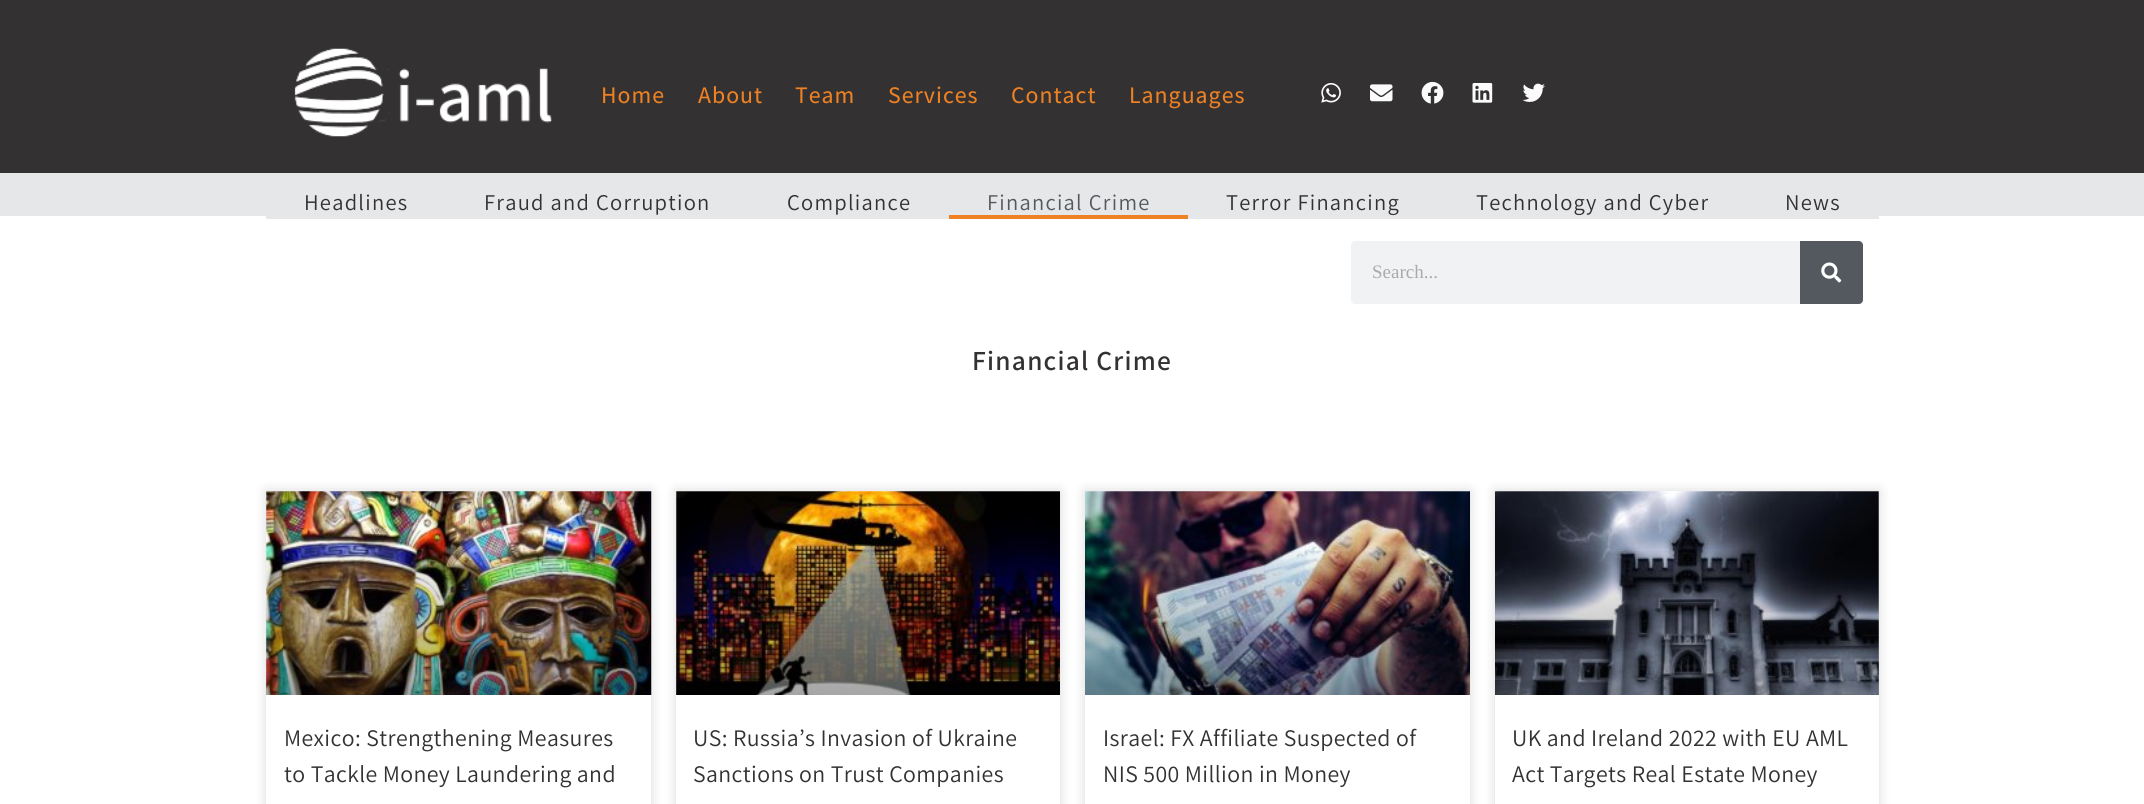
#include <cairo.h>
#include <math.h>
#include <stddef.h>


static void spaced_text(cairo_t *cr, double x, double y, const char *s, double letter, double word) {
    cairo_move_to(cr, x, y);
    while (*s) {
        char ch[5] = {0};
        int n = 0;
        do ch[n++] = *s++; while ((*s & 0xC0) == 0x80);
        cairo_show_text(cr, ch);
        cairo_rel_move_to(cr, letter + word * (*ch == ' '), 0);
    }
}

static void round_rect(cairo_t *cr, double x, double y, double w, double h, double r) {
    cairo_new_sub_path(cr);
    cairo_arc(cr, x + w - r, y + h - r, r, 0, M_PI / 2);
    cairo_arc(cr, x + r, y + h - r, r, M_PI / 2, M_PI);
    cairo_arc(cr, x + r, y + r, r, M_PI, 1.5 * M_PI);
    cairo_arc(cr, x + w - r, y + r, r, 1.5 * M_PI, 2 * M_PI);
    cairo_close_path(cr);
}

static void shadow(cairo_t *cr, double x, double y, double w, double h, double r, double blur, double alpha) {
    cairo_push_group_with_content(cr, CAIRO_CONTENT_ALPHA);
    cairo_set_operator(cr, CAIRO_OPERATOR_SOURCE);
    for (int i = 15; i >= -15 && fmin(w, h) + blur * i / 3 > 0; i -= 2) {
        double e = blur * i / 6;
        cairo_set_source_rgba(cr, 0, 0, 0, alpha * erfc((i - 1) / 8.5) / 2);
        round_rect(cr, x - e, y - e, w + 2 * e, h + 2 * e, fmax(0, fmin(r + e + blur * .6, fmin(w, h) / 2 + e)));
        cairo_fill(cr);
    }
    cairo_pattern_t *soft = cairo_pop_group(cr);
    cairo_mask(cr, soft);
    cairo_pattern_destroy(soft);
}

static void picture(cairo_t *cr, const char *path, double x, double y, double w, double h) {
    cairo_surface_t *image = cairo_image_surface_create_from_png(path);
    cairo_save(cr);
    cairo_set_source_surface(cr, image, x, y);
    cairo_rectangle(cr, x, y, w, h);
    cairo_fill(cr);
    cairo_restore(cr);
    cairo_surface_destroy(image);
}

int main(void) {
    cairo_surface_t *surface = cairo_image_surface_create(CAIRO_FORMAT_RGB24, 2144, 804);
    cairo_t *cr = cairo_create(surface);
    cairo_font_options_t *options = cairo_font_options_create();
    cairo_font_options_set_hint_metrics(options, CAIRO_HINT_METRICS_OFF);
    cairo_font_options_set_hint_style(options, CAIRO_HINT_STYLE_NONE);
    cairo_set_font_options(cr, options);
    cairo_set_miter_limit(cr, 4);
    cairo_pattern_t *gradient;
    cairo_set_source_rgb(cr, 1, 1, 1);
    cairo_paint(cr);
    cairo_set_source_rgb(cr, 0.2, 0.192, 0.196);
    cairo_rectangle(cr, 0, 0, 2144, 173);
    cairo_fill(cr);
    picture(cr, "img1.png", 294, 48, 258, 89);
    cairo_select_font_face(cr, "Assistant Medium", CAIRO_FONT_SLANT_NORMAL, CAIRO_FONT_WEIGHT_NORMAL);
    cairo_set_font_size(cr, 23.75);
    cairo_set_source_rgb(cr, 0.929, 0.506, 0.137);
    spaced_text(cr, 601, 103, "Home", 1, 0);
    spaced_text(cr, 698, 103, "About", 1, 0);
    spaced_text(cr, 795, 103, "Team", 1, 0);
    spaced_text(cr, 888, 103, "Services", 1, 0);
    spaced_text(cr, 1011, 103, "Contact", 1, 0);
    spaced_text(cr, 1129, 103, "Languages", 1, 0);
    picture(cr, "img2.png", 1321, 83, 20, 20);
    picture(cr, "img3.png", 1370, 84, 23, 18);
    picture(cr, "img4.png", 1421, 81, 23, 23);
    picture(cr, "img5.png", 1472, 83, 21, 20);
    picture(cr, "img6.png", 1522, 83, 23, 19);
    cairo_set_source_rgb(cr, 0.902, 0.906, 0.91);
    cairo_rectangle(cr, 0, 173, 2144, 43);
    cairo_fill(cr);
    cairo_rectangle(cr, 266, 216, 1613, 3);
    cairo_fill(cr);
    cairo_select_font_face(cr, "Assistant", CAIRO_FONT_SLANT_NORMAL, CAIRO_FONT_WEIGHT_NORMAL);
    cairo_set_font_size(cr, 22.5);
    cairo_set_source_rgb(cr, 0.2, 0.192, 0.196);
    spaced_text(cr, 304, 210, "Headlines", 1.25, 0);
    spaced_text(cr, 484, 210, "Fraud and Corruption", 1.25, 0);
    spaced_text(cr, 787, 210, "Compliance", 1.25, 0);
    cairo_set_source_rgb(cr, 0.329, 0.349, 0.373);
    spaced_text(cr, 987, 210, "Financial Crime", 1.25, 0);
    cairo_set_source_rgb(cr, 0.929, 0.506, 0.137);
    cairo_rectangle(cr, 949, 215, 239, 4);
    cairo_fill(cr);
    cairo_set_source_rgb(cr, 0.2, 0.192, 0.196);
    spaced_text(cr, 1226, 210, "Terror Financing", 1.25, 0);
    spaced_text(cr, 1476, 210, "Technology and Cyber", 1.25, 0);
    spaced_text(cr, 1785, 210, "News", 1.25, 0);
    cairo_set_source_rgb(cr, 0.945, 0.949, 0.953);
    round_rect(cr, 1351, 241, 512, 63, 4);
    cairo_fill(cr);
    cairo_select_font_face(cr, "Liberation Serif", CAIRO_FONT_SLANT_NORMAL, CAIRO_FONT_WEIGHT_NORMAL);
    cairo_set_font_size(cr, 19);
    cairo_set_source_rgb(cr, 0.667, 0.667, 0.667);
    cairo_move_to(cr, 1372, 278);
    cairo_show_text(cr, "Search...");
    cairo_set_source_rgb(cr, 0.329, 0.349, 0.373);
    cairo_new_path(cr);
    cairo_move_to(cr, 1800, 241);
    cairo_line_to(cr, 1859, 241);
    cairo_curve_to(cr, 1861, 241, 1863, 243, 1863, 245);
    cairo_line_to(cr, 1863, 300);
    cairo_curve_to(cr, 1863, 302, 1861, 304, 1859, 304);
    cairo_line_to(cr, 1800, 304);
    cairo_close_path(cr);
    cairo_fill(cr);
    picture(cr, "img7.png", 1821, 262, 21, 21);
    cairo_select_font_face(cr, "Assistant SemiBold", CAIRO_FONT_SLANT_NORMAL, CAIRO_FONT_WEIGHT_NORMAL);
    cairo_set_font_size(cr, 27.5);
    cairo_set_source_rgb(cr, 0.2, 0.192, 0.196);
    spaced_text(cr, 972, 370, "Financial Crime", 1.25, 0);
    cairo_set_source_rgb(cr, 0, 0, 0);
    shadow(cr, 266, 491, 385, 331, 0, 6, 0.15);
    cairo_set_source_rgb(cr, 1, 1, 1);
    cairo_rectangle(cr, 266, 491, 385, 313);
    cairo_fill(cr);
    picture(cr, "img8.png", 266, 491, 386, 204);
    gradient = cairo_pattern_create_linear(459, 695, 459, 491);
    cairo_pattern_add_color_stop_rgba(gradient, 0, 0, 0, 0, 0.35);
    cairo_pattern_add_color_stop_rgba(gradient, 0.75, 0, 0, 0, 0);
    cairo_set_source(cr, gradient);
    cairo_pattern_destroy(gradient);
    cairo_rectangle(cr, 266, 551, 385, 144);
    cairo_fill(cr);
    cairo_select_font_face(cr, "Assistant", CAIRO_FONT_SLANT_NORMAL, CAIRO_FONT_WEIGHT_NORMAL);
    cairo_set_font_size(cr, 23.75);
    cairo_set_source_rgb(cr, 0.2, 0.192, 0.196);
    spaced_text(cr, 284, 746, "Mexico: Strengthening Measures", 0.4, 0);
    spaced_text(cr, 284, 782, "to Tackle Money Laundering and", 0.4, 0);
    cairo_set_source_rgb(cr, 0, 0, 0);
    shadow(cr, 676, 491, 384, 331, 0, 6, 0.15);
    cairo_set_source_rgb(cr, 1, 1, 1);
    cairo_rectangle(cr, 676, 491, 384, 313);
    cairo_fill(cr);
    picture(cr, "img9.png", 676, 491, 384, 204);
    gradient = cairo_pattern_create_linear(868, 695, 868, 491);
    cairo_pattern_add_color_stop_rgba(gradient, 0, 0, 0, 0, 0.35);
    cairo_pattern_add_color_stop_rgba(gradient, 0.75, 0, 0, 0, 0);
    cairo_set_source(cr, gradient);
    cairo_pattern_destroy(gradient);
    cairo_rectangle(cr, 676, 551, 384, 144);
    cairo_fill(cr);
    cairo_set_source_rgb(cr, 0.2, 0.192, 0.196);
    spaced_text(cr, 693, 746, "US: Russia’s Invasion of Ukraine", 0.4, 0);
    spaced_text(cr, 693, 782, "Sanctions on Trust Companies", 0.4, 0);
    cairo_set_source_rgb(cr, 0, 0, 0);
    shadow(cr, 1085, 491, 385, 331, 0, 6, 0.15);
    cairo_set_source_rgb(cr, 1, 1, 1);
    cairo_rectangle(cr, 1085, 491, 385, 313);
    cairo_fill(cr);
    picture(cr, "img10.png", 1085, 491, 385, 204);
    gradient = cairo_pattern_create_linear(1278, 695, 1278, 491);
    cairo_pattern_add_color_stop_rgba(gradient, 0, 0, 0, 0, 0.35);
    cairo_pattern_add_color_stop_rgba(gradient, 0.75, 0, 0, 0, 0);
    cairo_set_source(cr, gradient);
    cairo_pattern_destroy(gradient);
    cairo_rectangle(cr, 1085, 551, 385, 144);
    cairo_fill(cr);
    cairo_set_source_rgb(cr, 0.2, 0.192, 0.196);
    spaced_text(cr, 1103, 746, "Israel: FX Affiliate Suspected of", 0.4, 0);
    spaced_text(cr, 1103, 782, "NIS 500 Million in Money", 0.4, 0);
    cairo_set_source_rgb(cr, 0, 0, 0);
    shadow(cr, 1495, 491, 384, 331, 0, 6, 0.15);
    cairo_set_source_rgb(cr, 1, 1, 1);
    cairo_rectangle(cr, 1495, 491, 384, 313);
    cairo_fill(cr);
    picture(cr, "img11.png", 1495, 491, 384, 204);
    gradient = cairo_pattern_create_linear(1687, 695, 1687, 491);
    cairo_pattern_add_color_stop_rgba(gradient, 0, 0, 0, 0, 0.35);
    cairo_pattern_add_color_stop_rgba(gradient, 0.75, 0, 0, 0, 0);
    cairo_set_source(cr, gradient);
    cairo_pattern_destroy(gradient);
    cairo_rectangle(cr, 1495, 551, 384, 144);
    cairo_fill(cr);
    cairo_set_source_rgb(cr, 0.2, 0.192, 0.196);
    spaced_text(cr, 1512, 746, "UK and Ireland 2022 with EU AML", 0.4, 0);
    spaced_text(cr, 1512, 782, "Act Targets Real Estate Money", 0.4, 0);
    cairo_surface_write_to_png(surface, "page.png");
    cairo_font_options_destroy(options);
    cairo_destroy(cr);
    cairo_surface_destroy(surface);
    return 0;
}
